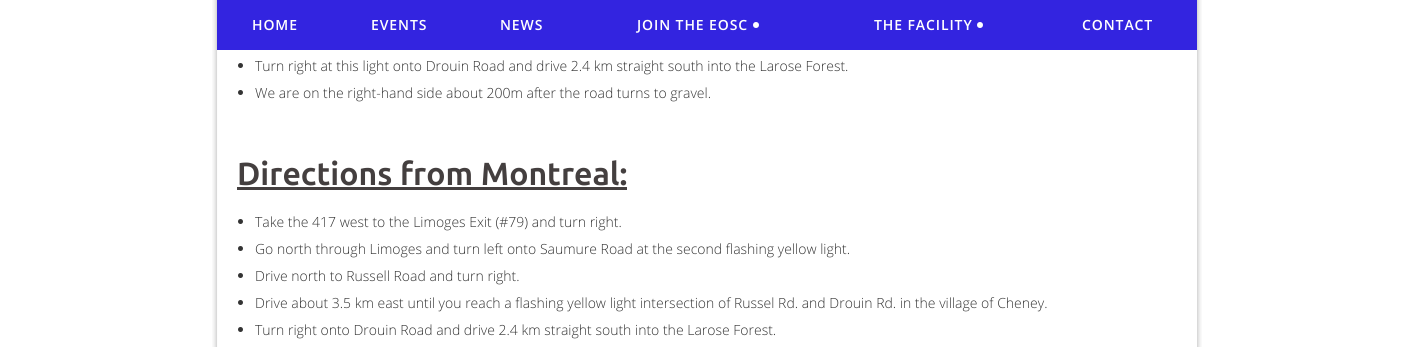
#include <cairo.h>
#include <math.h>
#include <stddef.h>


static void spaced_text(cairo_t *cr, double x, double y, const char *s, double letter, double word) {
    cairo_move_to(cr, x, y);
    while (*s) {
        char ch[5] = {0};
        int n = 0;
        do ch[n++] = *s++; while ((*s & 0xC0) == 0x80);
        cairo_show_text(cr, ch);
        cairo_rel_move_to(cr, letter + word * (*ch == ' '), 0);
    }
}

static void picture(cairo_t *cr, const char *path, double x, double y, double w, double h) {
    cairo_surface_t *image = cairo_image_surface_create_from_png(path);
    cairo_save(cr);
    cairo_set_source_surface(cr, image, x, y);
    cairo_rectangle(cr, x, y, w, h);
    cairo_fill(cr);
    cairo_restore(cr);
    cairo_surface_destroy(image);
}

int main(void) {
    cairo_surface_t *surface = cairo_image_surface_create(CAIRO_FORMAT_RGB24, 1413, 347);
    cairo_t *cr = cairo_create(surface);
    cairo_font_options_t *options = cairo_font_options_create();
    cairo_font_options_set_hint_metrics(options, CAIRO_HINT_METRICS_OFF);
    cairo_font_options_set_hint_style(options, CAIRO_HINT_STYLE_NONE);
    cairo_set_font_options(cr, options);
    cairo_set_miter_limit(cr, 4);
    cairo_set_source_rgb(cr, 1, 1, 1);
    cairo_paint(cr);
    picture(cr, "img1.png", 212, 0, 990, 347);
    cairo_set_source_rgb(cr, 0.2, 0.141, 0.878);
    cairo_rectangle(cr, 217, 0, 980, 50);
    cairo_fill(cr);
    cairo_select_font_face(cr, "Open Sans SemiBold", CAIRO_FONT_SLANT_NORMAL, CAIRO_FONT_WEIGHT_NORMAL);
    cairo_set_font_size(cr, 14);
    cairo_set_source_rgb(cr, 1, 1, 1);
    spaced_text(cr, 252, 30, "HOME", 0.9, 0);
    spaced_text(cr, 371, 30, "EVENTS", 0.9, 0);
    spaced_text(cr, 500, 30, "NEWS", 0.9, 0);
    spaced_text(cr, 637, 30, "JOIN THE EOSC", 0.9, 0);
    cairo_new_path(cr);
    cairo_arc(cr, 756, 25, 3, 0, 2 * M_PI);
    cairo_fill(cr);
    spaced_text(cr, 874, 30, "THE FACILITY", 0.9, 0);
    cairo_new_path(cr);
    cairo_arc(cr, 980, 25, 3, 0, 2 * M_PI);
    cairo_fill(cr);
    spaced_text(cr, 1082, 30, "CONTACT", 0.9, 0);
    cairo_set_source_rgb(cr, 0.2, 0.2, 0.2);
    cairo_new_path(cr);
    cairo_arc(cr, 240.5, 65.5, 2.5, 0, 2 * M_PI);
    cairo_fill(cr);
    cairo_select_font_face(cr, "Open Sans Light", CAIRO_FONT_SLANT_NORMAL, CAIRO_FONT_WEIGHT_NORMAL);
    cairo_move_to(cr, 255, 71);
    cairo_show_text(cr, "Turn right at this light onto Drouin Road and drive 2.4 km straight south into the Larose Forest.");
    cairo_new_path(cr);
    cairo_arc(cr, 240.5, 92.5, 2.5, 0, 2 * M_PI);
    cairo_fill(cr);
    cairo_move_to(cr, 255, 98);
    cairo_show_text(cr, "We are on the right-hand side about 200m after the road turns to gravel.");
    cairo_select_font_face(cr, "Ubuntu", CAIRO_FONT_SLANT_NORMAL, CAIRO_FONT_WEIGHT_BOLD);
    cairo_set_font_size(cr, 32);
    cairo_set_source_rgb(cr, 0.267, 0.247, 0.247);
    cairo_move_to(cr, 237, 185);
    cairo_show_text(cr, "Directions from Montreal:");
    cairo_rectangle(cr, 237, 187, 390, 3);
    cairo_fill(cr);
    cairo_set_source_rgb(cr, 0.2, 0.2, 0.2);
    cairo_arc(cr, 240.5, 221.5, 2.5, 0, 2 * M_PI);
    cairo_fill(cr);
    cairo_select_font_face(cr, "Open Sans Light", CAIRO_FONT_SLANT_NORMAL, CAIRO_FONT_WEIGHT_NORMAL);
    cairo_set_font_size(cr, 14);
    cairo_move_to(cr, 255, 227);
    cairo_show_text(cr, "Take the 417 west to the Limoges Exit (#79) and turn right.");
    cairo_new_path(cr);
    cairo_arc(cr, 240.5, 248.5, 2.5, 0, 2 * M_PI);
    cairo_fill(cr);
    cairo_move_to(cr, 255, 254);
    cairo_show_text(cr, "Go north through Limoges and turn left onto Saumure Road at the second flashing yellow light.");
    cairo_new_path(cr);
    cairo_arc(cr, 240.5, 275.5, 2.5, 0, 2 * M_PI);
    cairo_fill(cr);
    cairo_move_to(cr, 255, 281);
    cairo_show_text(cr, "Drive north to Russell Road and turn right.");
    cairo_new_path(cr);
    cairo_arc(cr, 240.5, 302.5, 2.5, 0, 2 * M_PI);
    cairo_fill(cr);
    cairo_move_to(cr, 255, 308);
    cairo_show_text(cr, "Drive about 3.5 km east until you reach a flashing yellow light intersection of Russel Rd. and Drouin Rd. in the village of Cheney.");
    cairo_new_path(cr);
    cairo_arc(cr, 240.5, 329.5, 2.5, 0, 2 * M_PI);
    cairo_fill(cr);
    cairo_move_to(cr, 255, 335);
    cairo_show_text(cr, "Turn right onto Drouin Road and drive 2.4 km straight south into the Larose Forest.");
    cairo_surface_write_to_png(surface, "page.png");
    cairo_font_options_destroy(options);
    cairo_destroy(cr);
    cairo_surface_destroy(surface);
    return 0;
}
